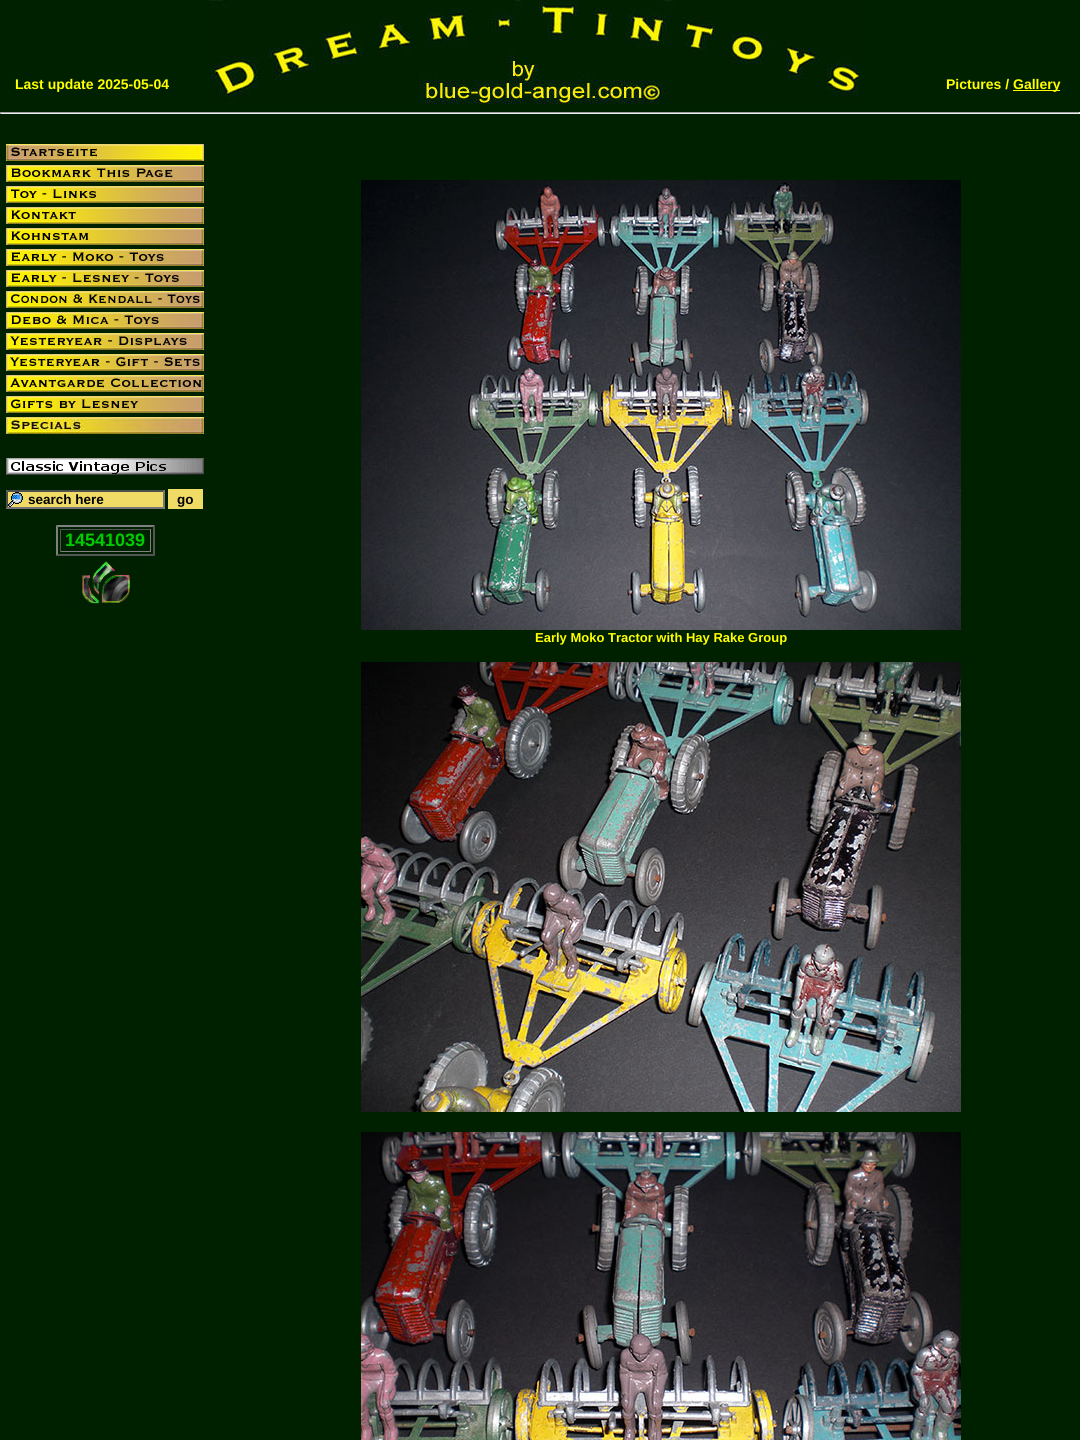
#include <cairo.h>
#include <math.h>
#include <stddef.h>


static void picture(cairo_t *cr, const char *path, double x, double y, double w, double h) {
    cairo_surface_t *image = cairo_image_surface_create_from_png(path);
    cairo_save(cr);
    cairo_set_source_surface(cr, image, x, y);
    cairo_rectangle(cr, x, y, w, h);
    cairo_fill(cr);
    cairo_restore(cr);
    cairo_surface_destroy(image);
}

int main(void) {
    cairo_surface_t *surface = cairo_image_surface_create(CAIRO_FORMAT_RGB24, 1080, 1440);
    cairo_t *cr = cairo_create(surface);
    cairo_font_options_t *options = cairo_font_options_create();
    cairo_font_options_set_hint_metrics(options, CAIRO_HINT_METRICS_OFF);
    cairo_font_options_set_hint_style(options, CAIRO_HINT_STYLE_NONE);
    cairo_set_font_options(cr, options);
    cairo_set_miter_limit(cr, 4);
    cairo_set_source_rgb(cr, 0, 0.129, 0);
    cairo_paint(cr);
    cairo_select_font_face(cr, "Liberation Sans", CAIRO_FONT_SLANT_NORMAL, CAIRO_FONT_WEIGHT_BOLD);
    cairo_set_font_size(cr, 14);
    cairo_set_source_rgb(cr, 1, 1, 0);
    cairo_move_to(cr, 15, 89);
    cairo_show_text(cr, "Last update 2025-05-04");
    picture(cr, "img1.png", 209, 0, 650, 104);
    cairo_move_to(cr, 946, 89);
    cairo_show_text(cr, "Pictures /");
    cairo_rectangle(cr, 1013, 90, 47, 1);
    cairo_fill(cr);
    cairo_move_to(cr, 1013, 89);
    cairo_show_text(cr, "Gallery");
    cairo_set_source_rgb(cr, 0.624, 0.624, 0.624);
    cairo_rectangle(cr, 0, 112, 1080, 1);
    cairo_fill(cr);
    cairo_set_source_rgb(cr, 0.933, 0.933, 0.933);
    cairo_rectangle(cr, 1079, 112, 1, 2);
    cairo_fill(cr);
    cairo_rectangle(cr, 0, 113, 1080, 1);
    cairo_fill(cr);
    cairo_set_source_rgb(cr, 0.624, 0.624, 0.624);
    cairo_rectangle(cr, 0, 112, 1, 2);
    cairo_fill(cr);
    picture(cr, "img2.png", 6, 144, 198, 17);
    picture(cr, "img3.png", 6, 165, 198, 17);
    picture(cr, "img4.png", 6, 186, 198, 17);
    picture(cr, "img5.png", 6, 207, 198, 17);
    picture(cr, "img6.png", 6, 228, 198, 17);
    picture(cr, "img7.png", 6, 249, 198, 17);
    picture(cr, "img8.png", 6, 270, 198, 17);
    picture(cr, "img9.png", 6, 291, 198, 17);
    picture(cr, "img10.png", 6, 312, 198, 17);
    picture(cr, "img11.png", 6, 333, 198, 17);
    picture(cr, "img12.png", 6, 354, 198, 17);
    picture(cr, "img13.png", 6, 375, 198, 17);
    picture(cr, "img14.png", 6, 396, 198, 17);
    picture(cr, "img15.png", 6, 417, 198, 17);
    picture(cr, "img16.png", 6, 458, 198, 17);
    cairo_set_source_rgb(cr, 0.941, 0.859, 0.4);
    cairo_rectangle(cr, 6, 490, 159, 19);
    cairo_fill(cr);
    picture(cr, "img17.png", 8, 492, 15, 15);
    cairo_set_source_rgb(cr, 0.31, 0.31, 0.31);
    cairo_new_path(cr);
    cairo_move_to(cr, 6, 490);
    cairo_line_to(cr, 165, 490);
    cairo_line_to(cr, 163, 492);
    cairo_line_to(cr, 8, 492);
    cairo_close_path(cr);
    cairo_fill(cr);
    cairo_set_source_rgb(cr, 0.463, 0.463, 0.463);
    cairo_new_path(cr);
    cairo_move_to(cr, 165, 490);
    cairo_line_to(cr, 165, 509);
    cairo_line_to(cr, 163, 507);
    cairo_line_to(cr, 163, 492);
    cairo_close_path(cr);
    cairo_fill(cr);
    cairo_new_path(cr);
    cairo_move_to(cr, 165, 509);
    cairo_line_to(cr, 6, 509);
    cairo_line_to(cr, 8, 507);
    cairo_line_to(cr, 163, 507);
    cairo_close_path(cr);
    cairo_fill(cr);
    cairo_set_source_rgb(cr, 0.31, 0.31, 0.31);
    cairo_new_path(cr);
    cairo_move_to(cr, 6, 509);
    cairo_line_to(cr, 6, 490);
    cairo_line_to(cr, 8, 492);
    cairo_line_to(cr, 8, 507);
    cairo_close_path(cr);
    cairo_fill(cr);
    cairo_set_font_size(cr, 13.5);
    cairo_set_source_rgb(cr, 0, 0, 0);
    cairo_move_to(cr, 28, 504);
    cairo_show_text(cr, "search here");
    cairo_set_source_rgb(cr, 0.941, 0.859, 0.4);
    cairo_rectangle(cr, 168, 489, 35, 20);
    cairo_fill(cr);
    cairo_set_source_rgb(cr, 0, 0, 0);
    cairo_move_to(cr, 177, 504);
    cairo_show_text(cr, "go");
    cairo_set_source_rgb(cr, 0.502, 0.502, 0.502);
    cairo_new_path(cr);
    cairo_move_to(cr, 56, 525);
    cairo_line_to(cr, 155, 525);
    cairo_line_to(cr, 153, 527);
    cairo_line_to(cr, 58, 527);
    cairo_close_path(cr);
    cairo_fill(cr);
    cairo_set_source_rgb(cr, 0.333, 0.333, 0.333);
    cairo_new_path(cr);
    cairo_move_to(cr, 155, 525);
    cairo_line_to(cr, 155, 556);
    cairo_line_to(cr, 153, 554);
    cairo_line_to(cr, 153, 527);
    cairo_close_path(cr);
    cairo_fill(cr);
    cairo_new_path(cr);
    cairo_move_to(cr, 155, 556);
    cairo_line_to(cr, 56, 556);
    cairo_line_to(cr, 58, 554);
    cairo_line_to(cr, 153, 554);
    cairo_close_path(cr);
    cairo_fill(cr);
    cairo_set_source_rgb(cr, 0.502, 0.502, 0.502);
    cairo_new_path(cr);
    cairo_move_to(cr, 56, 556);
    cairo_line_to(cr, 56, 525);
    cairo_line_to(cr, 58, 527);
    cairo_line_to(cr, 58, 554);
    cairo_close_path(cr);
    cairo_fill(cr);
    cairo_set_source_rgb(cr, 0.333, 0.333, 0.333);
    cairo_rectangle(cr, 60, 529, 91, 1);
    cairo_fill(cr);
    cairo_set_source_rgb(cr, 0.502, 0.502, 0.502);
    cairo_rectangle(cr, 150, 529, 1, 23);
    cairo_fill(cr);
    cairo_rectangle(cr, 60, 551, 91, 1);
    cairo_fill(cr);
    cairo_set_source_rgb(cr, 0.333, 0.333, 0.333);
    cairo_rectangle(cr, 60, 529, 1, 23);
    cairo_fill(cr);
    cairo_set_font_size(cr, 18);
    cairo_set_source_rgb(cr, 0, 0.8, 0);
    cairo_move_to(cr, 65, 546);
    cairo_show_text(cr, "14541039");
    picture(cr, "img18.png", 78, 561, 52, 45);
    picture(cr, "img19.png", 361, 180, 600, 450);
    cairo_set_font_size(cr, 13);
    cairo_set_source_rgb(cr, 1, 1, 0);
    cairo_move_to(cr, 535, 642);
    cairo_show_text(cr, "Early Moko Tractor with Hay Rake Group");
    picture(cr, "img20.png", 361, 662, 600, 450);
    picture(cr, "img21.png", 361, 1132, 600, 308);
    cairo_surface_write_to_png(surface, "page.png");
    cairo_font_options_destroy(options);
    cairo_destroy(cr);
    cairo_surface_destroy(surface);
    return 0;
}
